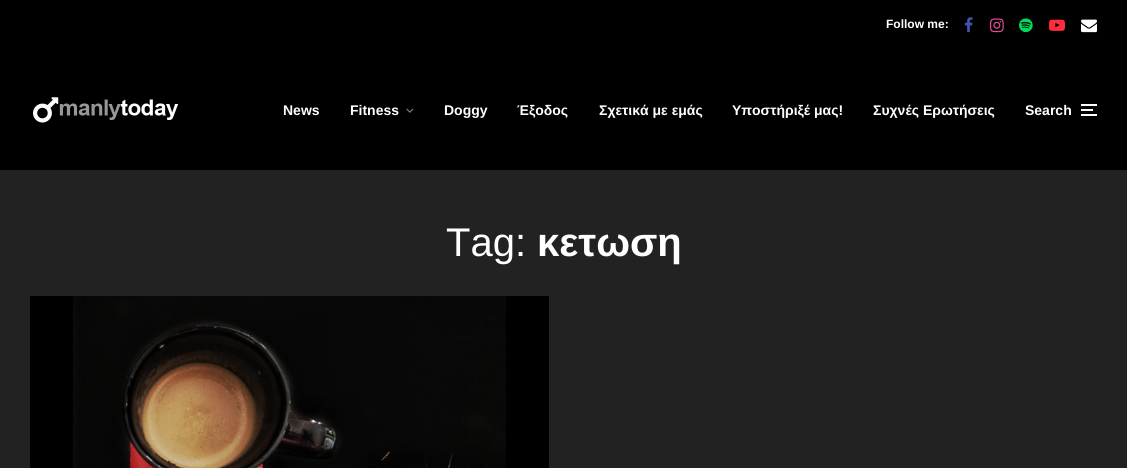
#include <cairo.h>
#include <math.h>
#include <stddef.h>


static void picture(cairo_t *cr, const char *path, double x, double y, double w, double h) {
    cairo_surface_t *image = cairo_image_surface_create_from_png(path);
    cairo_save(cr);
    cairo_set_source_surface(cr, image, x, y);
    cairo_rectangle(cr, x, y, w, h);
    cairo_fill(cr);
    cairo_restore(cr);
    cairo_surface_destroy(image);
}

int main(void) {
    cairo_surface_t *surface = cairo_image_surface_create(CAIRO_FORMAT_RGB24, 1127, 468);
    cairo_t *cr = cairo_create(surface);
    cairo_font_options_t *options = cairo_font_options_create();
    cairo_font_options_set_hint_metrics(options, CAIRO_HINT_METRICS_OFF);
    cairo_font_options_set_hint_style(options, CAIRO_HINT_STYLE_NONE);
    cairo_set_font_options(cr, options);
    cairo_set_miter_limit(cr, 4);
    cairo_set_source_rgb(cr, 0.133, 0.133, 0.133);
    cairo_paint(cr);
    cairo_set_source_rgb(cr, 0, 0, 0);
    cairo_rectangle(cr, 0, 0, 1127, 170);
    cairo_fill(cr);
    cairo_select_font_face(cr, "Liberation Sans", CAIRO_FONT_SLANT_NORMAL, CAIRO_FONT_WEIGHT_BOLD);
    cairo_set_font_size(cr, 12);
    cairo_set_source_rgb(cr, 1, 1, 1);
    cairo_move_to(cr, 886, 28);
    cairo_show_text(cr, "Follow me:");
    picture(cr, "img1.png", 964, 17, 9, 16);
    picture(cr, "img2.png", 990, 18, 14, 15);
    picture(cr, "img3.png", 1019, 18, 14, 15);
    picture(cr, "img4.png", 1049, 19, 16, 12);
    picture(cr, "img5.png", 1081, 19, 16, 14);
    picture(cr, "img6.png", 33, 97, 146, 26);
    cairo_set_font_size(cr, 14);
    cairo_move_to(cr, 283, 115);
    cairo_show_text(cr, "News");
    cairo_move_to(cr, 350, 115);
    cairo_show_text(cr, "Fitness");
    picture(cr, "img7.png", 406, 108, 8, 5);
    cairo_move_to(cr, 444, 115);
    cairo_show_text(cr, "Doggy");
    cairo_move_to(cr, 517, 115);
    cairo_show_text(cr, "Έξοδος");
    cairo_move_to(cr, 599, 115);
    cairo_show_text(cr, "Σχετικά με εμάς");
    cairo_move_to(cr, 732, 115);
    cairo_show_text(cr, "Υποστήριξέ μας!");
    cairo_move_to(cr, 873, 115);
    cairo_show_text(cr, "Συχνές Ερωτήσεις");
    cairo_move_to(cr, 1025, 115);
    cairo_show_text(cr, "Search");
    picture(cr, "img8.png", 1081, 104, 16, 12);
    cairo_select_font_face(cr, "Liberation Sans", CAIRO_FONT_SLANT_NORMAL, CAIRO_FONT_WEIGHT_NORMAL);
    cairo_set_font_size(cr, 40);
    cairo_move_to(cr, 446, 256);
    cairo_show_text(cr, "Tag:");
    cairo_select_font_face(cr, "Liberation Sans", CAIRO_FONT_SLANT_NORMAL, CAIRO_FONT_WEIGHT_BOLD);
    cairo_move_to(cr, 537, 256);
    cairo_show_text(cr, "κετωση");
    picture(cr, "img9.png", 30, 296, 519, 172);
    cairo_surface_write_to_png(surface, "page.png");
    cairo_font_options_destroy(options);
    cairo_destroy(cr);
    cairo_surface_destroy(surface);
    return 0;
}
